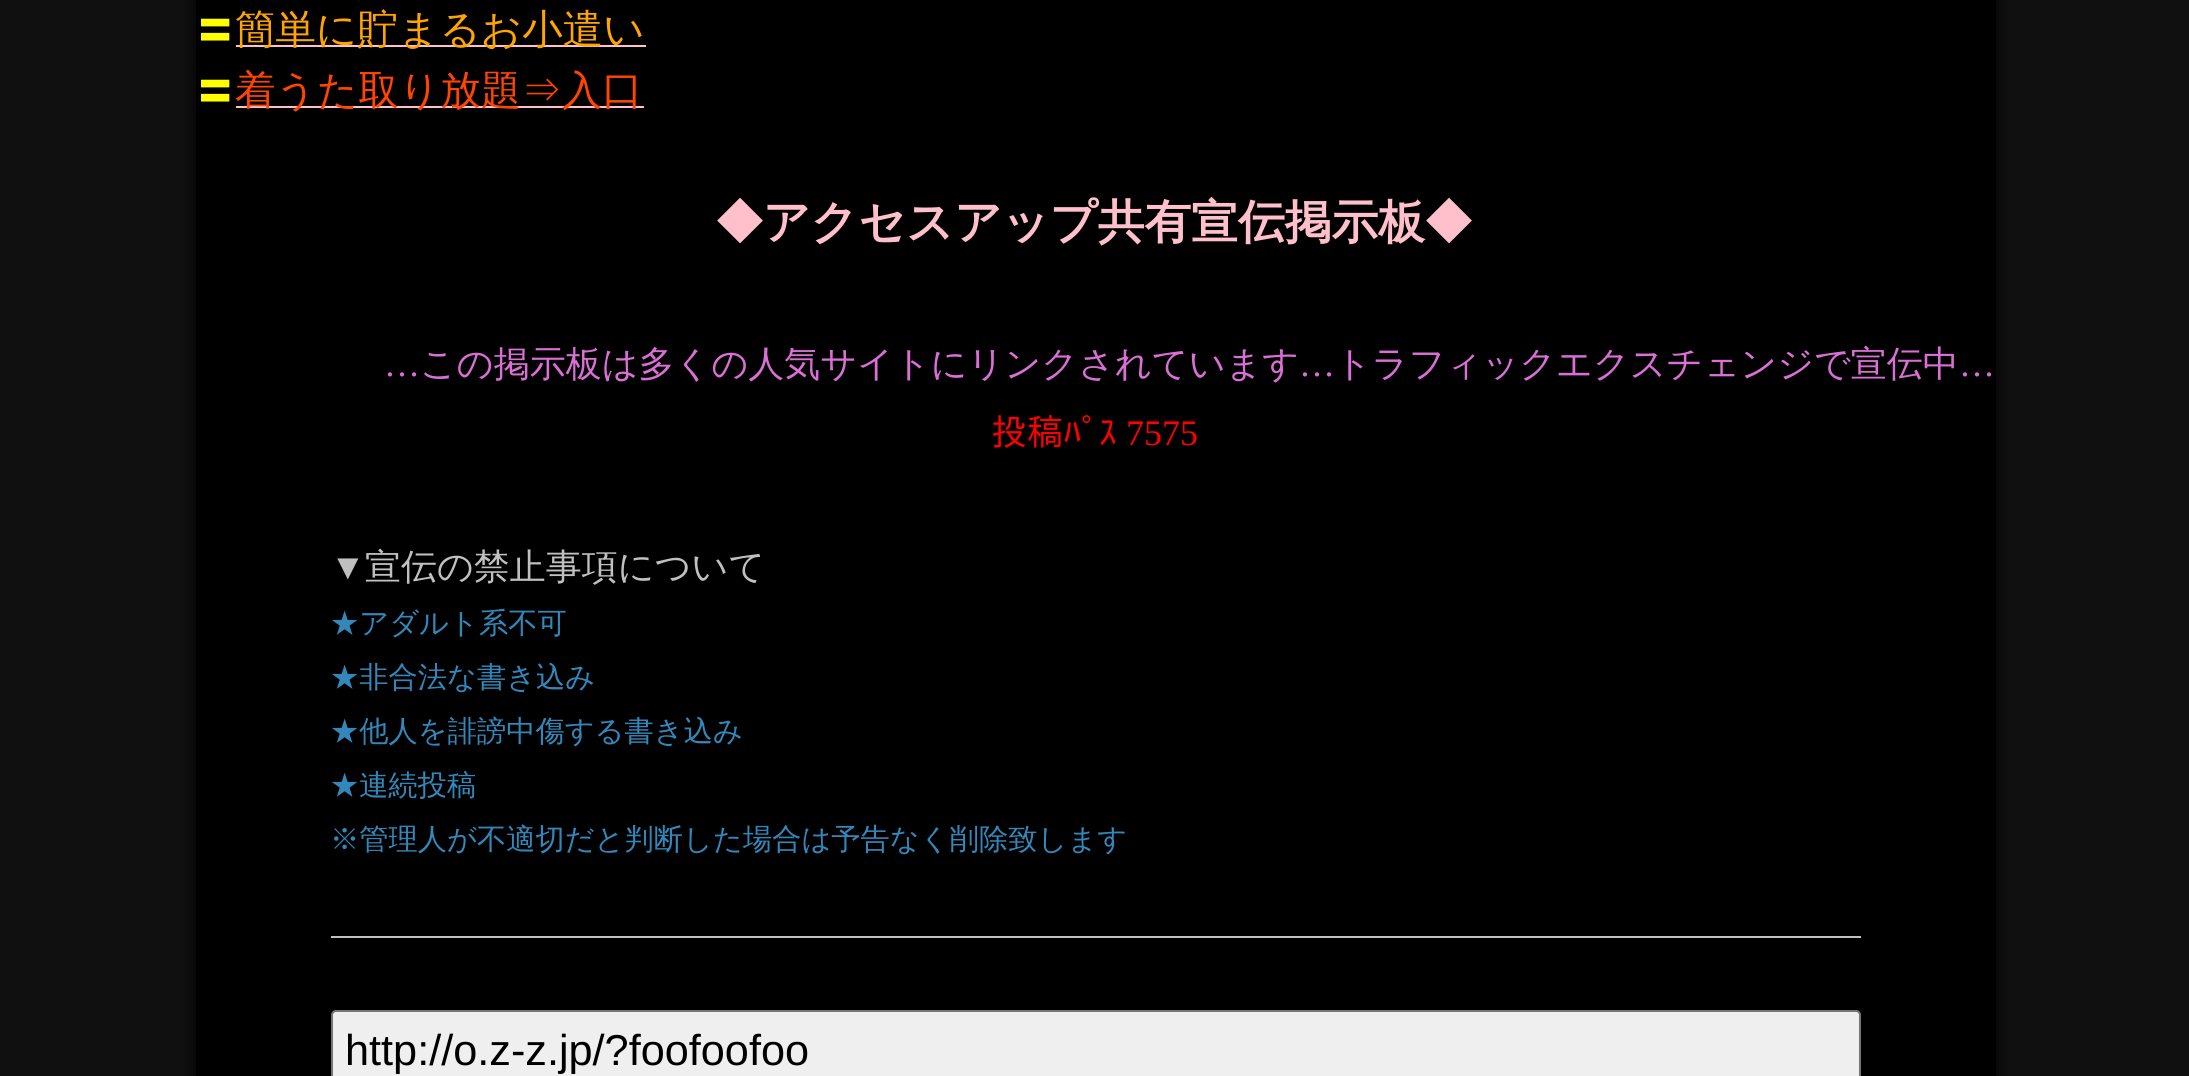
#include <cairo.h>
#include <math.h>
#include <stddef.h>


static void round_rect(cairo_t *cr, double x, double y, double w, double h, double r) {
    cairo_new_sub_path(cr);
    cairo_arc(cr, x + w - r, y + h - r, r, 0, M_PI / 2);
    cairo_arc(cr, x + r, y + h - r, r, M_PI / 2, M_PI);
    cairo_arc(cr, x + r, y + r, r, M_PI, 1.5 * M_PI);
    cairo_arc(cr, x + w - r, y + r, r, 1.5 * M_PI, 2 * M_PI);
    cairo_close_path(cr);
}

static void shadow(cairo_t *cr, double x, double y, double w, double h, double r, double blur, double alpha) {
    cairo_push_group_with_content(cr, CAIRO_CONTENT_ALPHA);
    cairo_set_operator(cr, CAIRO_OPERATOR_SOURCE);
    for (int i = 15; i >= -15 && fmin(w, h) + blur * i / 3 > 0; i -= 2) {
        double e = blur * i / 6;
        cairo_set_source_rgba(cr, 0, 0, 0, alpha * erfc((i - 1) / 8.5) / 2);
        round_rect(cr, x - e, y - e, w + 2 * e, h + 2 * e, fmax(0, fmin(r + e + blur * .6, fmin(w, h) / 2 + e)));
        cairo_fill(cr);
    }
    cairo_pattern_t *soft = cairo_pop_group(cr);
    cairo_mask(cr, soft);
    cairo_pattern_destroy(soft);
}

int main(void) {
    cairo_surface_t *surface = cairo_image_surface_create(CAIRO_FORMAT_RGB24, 2189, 1076);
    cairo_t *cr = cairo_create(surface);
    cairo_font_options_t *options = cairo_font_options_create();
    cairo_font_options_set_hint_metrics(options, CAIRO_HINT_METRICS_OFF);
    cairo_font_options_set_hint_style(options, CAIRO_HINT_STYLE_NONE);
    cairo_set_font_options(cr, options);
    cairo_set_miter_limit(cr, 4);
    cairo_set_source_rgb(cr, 0.063, 0.063, 0.063);
    cairo_paint(cr);
    cairo_set_source_rgb(cr, 0, 0, 0);
    shadow(cr, 196, -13, 1800, 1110, 0, 7, 1);
    cairo_set_source_rgb(cr, 0, 0, 0);
    cairo_rectangle(cr, 196, 0, 1800, 1076);
    cairo_fill(cr);
    cairo_select_font_face(cr, "WenQuanYi Zen Hei Medium", CAIRO_FONT_SLANT_NORMAL, CAIRO_FONT_WEIGHT_NORMAL);
    cairo_set_font_size(cr, 40.5);
    cairo_set_source_rgb(cr, 1, 1, 0);
    cairo_move_to(cr, 195, 43);
    cairo_show_text(cr, "〓");
    cairo_set_source_rgb(cr, 1, 0.753, 0.796);
    cairo_rectangle(cr, 236, 45, 410, 2);
    cairo_fill(cr);
    cairo_set_source_rgb(cr, 1, 0.647, 0);
    cairo_move_to(cr, 235, 43);
    cairo_show_text(cr, "簡単に貯まるお小遣い");
    cairo_set_source_rgb(cr, 1, 1, 0);
    cairo_move_to(cr, 195, 104);
    cairo_show_text(cr, "〓");
    cairo_set_source_rgb(cr, 1, 0.753, 0.796);
    cairo_rectangle(cr, 236, 106, 408, 2);
    cairo_fill(cr);
    cairo_set_source_rgb(cr, 1, 0.271, 0);
    cairo_move_to(cr, 235, 104);
    cairo_show_text(cr, "着うた取り放題⇒入口");
    cairo_select_font_face(cr, "WenQuanYi Zen Hei", CAIRO_FONT_SLANT_NORMAL, CAIRO_FONT_WEIGHT_BOLD);
    cairo_set_font_size(cr, 46.75);
    cairo_set_source_rgb(cr, 1, 0.753, 0.796);
    cairo_move_to(cr, 716, 238);
    cairo_show_text(cr, "◆アクセスアップ共有宣伝掲示板◆");
    cairo_select_font_face(cr, "Liberation Serif", CAIRO_FONT_SLANT_NORMAL, CAIRO_FONT_WEIGHT_NORMAL);
    cairo_set_font_size(cr, 36);
    cairo_set_source_rgb(cr, 0.855, 0.439, 0.839);
    cairo_move_to(cr, 384, 376);
    cairo_show_text(cr, "…");
    cairo_select_font_face(cr, "WenQuanYi Zen Hei Medium", CAIRO_FONT_SLANT_NORMAL, CAIRO_FONT_WEIGHT_NORMAL);
    cairo_move_to(cr, 420, 376);
    cairo_show_text(cr, "この掲示板は多くの人気サイトにリンクされています");
    cairo_select_font_face(cr, "Liberation Serif", CAIRO_FONT_SLANT_NORMAL, CAIRO_FONT_WEIGHT_NORMAL);
    cairo_move_to(cr, 1299, 376);
    cairo_show_text(cr, "…");
    cairo_select_font_face(cr, "WenQuanYi Zen Hei Medium", CAIRO_FONT_SLANT_NORMAL, CAIRO_FONT_WEIGHT_NORMAL);
    cairo_move_to(cr, 1335, 376);
    cairo_show_text(cr, "トラフィックエクスチェンジで宣伝中");
    cairo_select_font_face(cr, "Liberation Serif", CAIRO_FONT_SLANT_NORMAL, CAIRO_FONT_WEIGHT_NORMAL);
    cairo_move_to(cr, 1959, 376);
    cairo_show_text(cr, "…");
    cairo_select_font_face(cr, "IPAPGothic", CAIRO_FONT_SLANT_NORMAL, CAIRO_FONT_WEIGHT_NORMAL);
    cairo_set_source_rgb(cr, 1, 0, 0);
    cairo_move_to(cr, 991, 445);
    cairo_show_text(cr, "投稿ﾊﾟｽ");
    cairo_select_font_face(cr, "Liberation Serif", CAIRO_FONT_SLANT_NORMAL, CAIRO_FONT_WEIGHT_NORMAL);
    cairo_move_to(cr, 1126, 445);
    cairo_show_text(cr, "7575");
    cairo_set_source_rgb(cr, 0.753, 0.753, 0.753);
    cairo_move_to(cr, 330, 579);
    cairo_show_text(cr, "▼");
    cairo_select_font_face(cr, "WenQuanYi Zen Hei Medium", CAIRO_FONT_SLANT_NORMAL, CAIRO_FONT_WEIGHT_NORMAL);
    cairo_move_to(cr, 365, 579);
    cairo_show_text(cr, "宣伝の禁止事項について");
    cairo_set_font_size(cr, 29.25);
    cairo_set_source_rgb(cr, 0.2, 0.533, 0.733);
    cairo_move_to(cr, 330, 633);
    cairo_show_text(cr, "★アダルト系不可");
    cairo_move_to(cr, 330, 687);
    cairo_show_text(cr, "★非合法な書き込み");
    cairo_move_to(cr, 330, 741);
    cairo_show_text(cr, "★他人を誹謗中傷する書き込み");
    cairo_move_to(cr, 330, 795);
    cairo_show_text(cr, "★連続投稿");
    cairo_move_to(cr, 330, 849);
    cairo_show_text(cr, "※管理人が不適切だと判断した場合は予告なく削除致します");
    cairo_set_source_rgb(cr, 0.753, 0.753, 0.753);
    cairo_rectangle(cr, 331, 936, 1530, 2);
    cairo_fill(cr);
    cairo_set_source_rgb(cr, 0.937, 0.937, 0.937);
    round_rect(cr, 332, 1011, 1528, 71, 4);
    cairo_fill_preserve(cr);
    cairo_set_source_rgb(cr, 0.463, 0.463, 0.463);
    cairo_stroke(cr);
    cairo_select_font_face(cr, "Liberation Sans", CAIRO_FONT_SLANT_NORMAL, CAIRO_FONT_WEIGHT_NORMAL);
    cairo_set_font_size(cr, 43.25);
    cairo_set_source_rgb(cr, 0, 0, 0);
    cairo_move_to(cr, 345, 1065);
    cairo_show_text(cr, "http://o.z-z.jp/?foofoofoo");
    cairo_surface_write_to_png(surface, "page.png");
    cairo_font_options_destroy(options);
    cairo_destroy(cr);
    cairo_surface_destroy(surface);
    return 0;
}
